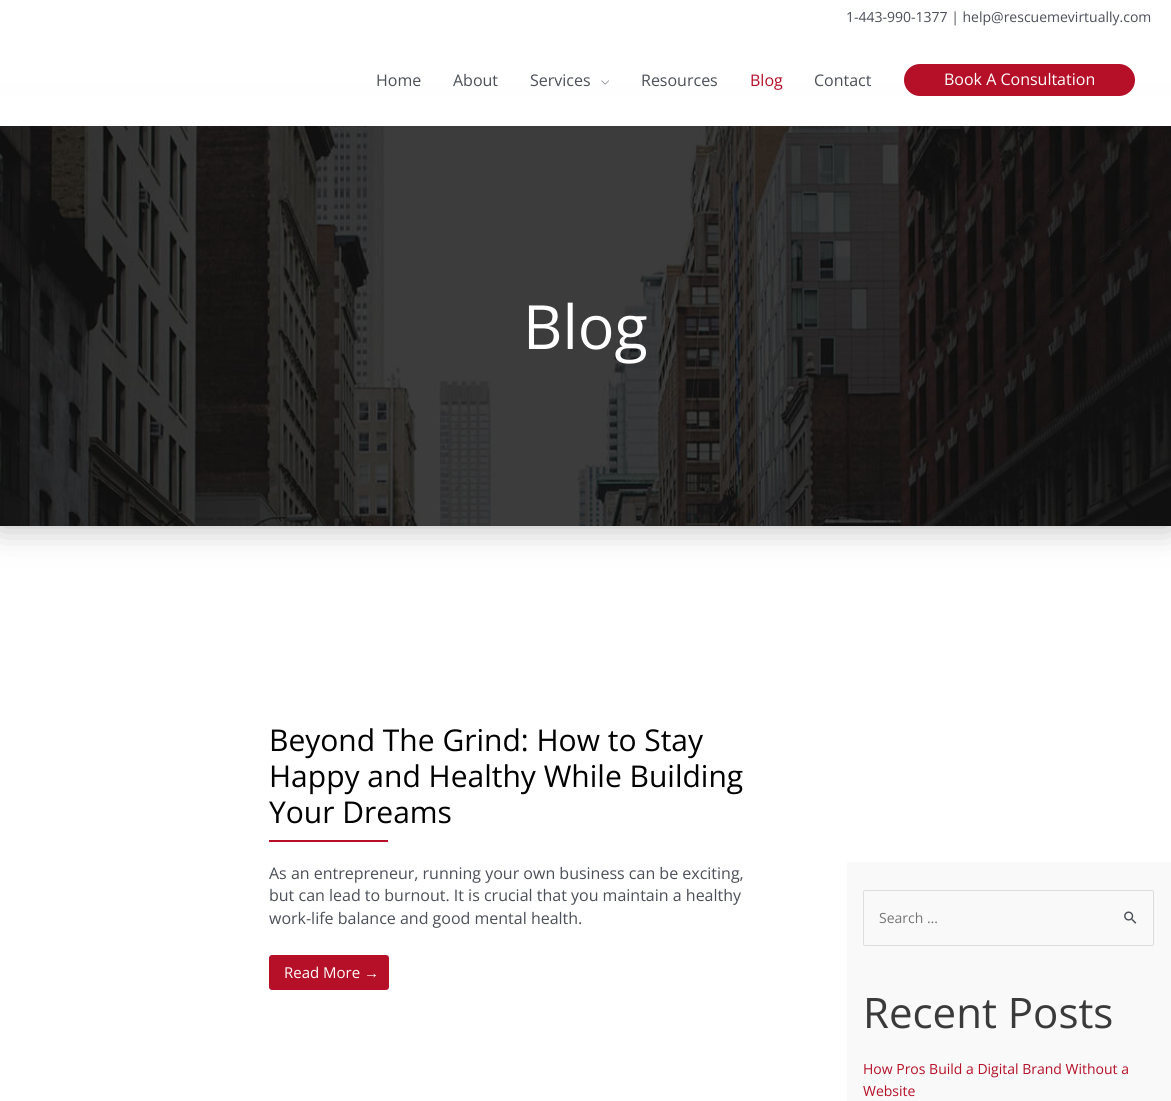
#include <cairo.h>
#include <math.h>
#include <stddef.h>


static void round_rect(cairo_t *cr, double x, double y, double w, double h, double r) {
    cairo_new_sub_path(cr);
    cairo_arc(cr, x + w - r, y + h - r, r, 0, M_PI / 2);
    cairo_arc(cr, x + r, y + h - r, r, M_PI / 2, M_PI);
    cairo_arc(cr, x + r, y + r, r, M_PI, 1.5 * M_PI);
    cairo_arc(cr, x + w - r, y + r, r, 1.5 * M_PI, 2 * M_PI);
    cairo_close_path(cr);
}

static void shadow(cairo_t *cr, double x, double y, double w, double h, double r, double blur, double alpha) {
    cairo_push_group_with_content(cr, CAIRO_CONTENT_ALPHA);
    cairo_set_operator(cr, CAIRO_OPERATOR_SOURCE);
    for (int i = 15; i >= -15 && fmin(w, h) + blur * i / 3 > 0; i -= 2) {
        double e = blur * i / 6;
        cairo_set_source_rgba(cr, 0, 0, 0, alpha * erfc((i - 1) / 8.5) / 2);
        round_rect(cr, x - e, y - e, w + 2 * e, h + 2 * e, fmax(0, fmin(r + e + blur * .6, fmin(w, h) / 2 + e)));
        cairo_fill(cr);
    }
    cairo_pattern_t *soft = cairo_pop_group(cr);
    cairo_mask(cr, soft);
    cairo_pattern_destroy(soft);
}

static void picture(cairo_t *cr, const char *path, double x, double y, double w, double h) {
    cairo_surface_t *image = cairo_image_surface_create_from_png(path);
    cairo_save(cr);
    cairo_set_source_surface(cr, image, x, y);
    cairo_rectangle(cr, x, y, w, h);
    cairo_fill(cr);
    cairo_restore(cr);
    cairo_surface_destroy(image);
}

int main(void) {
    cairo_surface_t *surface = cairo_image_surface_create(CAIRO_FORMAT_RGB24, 1171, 1101);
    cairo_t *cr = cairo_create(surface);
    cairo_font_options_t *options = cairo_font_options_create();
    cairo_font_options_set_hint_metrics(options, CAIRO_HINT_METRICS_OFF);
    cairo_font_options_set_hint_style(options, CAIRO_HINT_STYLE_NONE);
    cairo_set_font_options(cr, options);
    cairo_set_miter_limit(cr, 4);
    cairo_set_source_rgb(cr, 1, 1, 1);
    cairo_paint(cr);
    cairo_select_font_face(cr, "Open Sans", CAIRO_FONT_SLANT_NORMAL, CAIRO_FONT_WEIGHT_NORMAL);
    cairo_set_font_size(cr, 14);
    cairo_set_source_rgb(cr, 0.294, 0.31, 0.345);
    cairo_move_to(cr, 846, 22);
    cairo_show_text(cr, "1-443-990-1377 | help@rescuemevirtually.com");
    cairo_set_source_rgb(cr, 0.42, 0.42, 0.42);
    shadow(cr, 0, 126, 1171, 400, 0, 17, 0.5);
    cairo_set_source_rgb(cr, 1, 1, 1);
    cairo_rectangle(cr, 0, 95, 1171, 31);
    cairo_fill(cr);
    cairo_set_font_size(cr, 16);
    cairo_set_source_rgb(cr, 0.294, 0.31, 0.345);
    cairo_move_to(cr, 376, 86);
    cairo_show_text(cr, "Home");
    cairo_move_to(cr, 453, 86);
    cairo_show_text(cr, "About");
    cairo_move_to(cr, 530, 86);
    cairo_show_text(cr, "Services");
    picture(cr, "img1.png", 601, 80, 8, 5);
    cairo_move_to(cr, 641, 86);
    cairo_show_text(cr, "Resources");
    cairo_set_source_rgb(cr, 0.71, 0.063, 0.157);
    cairo_move_to(cr, 750, 86);
    cairo_show_text(cr, "Blog");
    cairo_set_source_rgb(cr, 0.294, 0.31, 0.345);
    cairo_move_to(cr, 814, 86);
    cairo_show_text(cr, "Contact");
    cairo_set_source_rgb(cr, 0.71, 0.063, 0.157);
    round_rect(cr, 904, 64, 231, 32, 16);
    cairo_fill(cr);
    cairo_set_source_rgb(cr, 1, 1, 1);
    cairo_move_to(cr, 944, 85);
    cairo_show_text(cr, "Book A Consultation");
    picture(cr, "img2.png", 0, 126, 1171, 400);
    cairo_set_font_size(cr, 61);
    cairo_move_to(cr, 523, 349);
    cairo_show_text(cr, "Blog");
    cairo_set_font_size(cr, 30);
    cairo_set_source_rgb(cr, 0, 0, 0);
    cairo_move_to(cr, 269, 751);
    cairo_show_text(cr, "Beyond The Grind: How to Stay");
    cairo_move_to(cr, 269, 787);
    cairo_show_text(cr, "Happy and Healthy While Building");
    cairo_move_to(cr, 269, 823);
    cairo_show_text(cr, "Your Dreams");
    cairo_set_source_rgb(cr, 0.71, 0.063, 0.157);
    cairo_rectangle(cr, 269, 840, 119, 2);
    cairo_fill(cr);
    cairo_set_font_size(cr, 16);
    cairo_set_source_rgb(cr, 0.294, 0.31, 0.345);
    cairo_move_to(cr, 269, 879);
    cairo_show_text(cr, "As an entrepreneur, running your own business can be exciting,");
    cairo_move_to(cr, 269, 901);
    cairo_show_text(cr, "but can lead to burnout. It is crucial that you maintain a healthy");
    cairo_move_to(cr, 269, 924);
    cairo_show_text(cr, "work-life balance and good mental health.");
    cairo_set_source_rgb(cr, 0.71, 0.063, 0.157);
    round_rect(cr, 269, 955, 120, 35, 3);
    cairo_fill(cr);
    cairo_set_font_size(cr, 15);
    cairo_set_source_rgb(cr, 1, 1, 1);
    cairo_move_to(cr, 284, 978);
    cairo_show_text(cr, "Read More");
    cairo_select_font_face(cr, "Liberation Sans", CAIRO_FONT_SLANT_NORMAL, CAIRO_FONT_WEIGHT_NORMAL);
    cairo_move_to(cr, 364, 978);
    cairo_show_text(cr, "→");
    cairo_set_source_rgb(cr, 0.973, 0.973, 0.973);
    cairo_rectangle(cr, 847, 862, 324, 239);
    cairo_fill(cr);
    round_rect(cr, 863.5, 890.5, 290, 55, 1.5);
    cairo_set_source_rgb(cr, 0.867, 0.867, 0.867);
    cairo_set_line_width(cr, 1);
    cairo_stroke(cr);
    cairo_select_font_face(cr, "Open Sans", CAIRO_FONT_SLANT_NORMAL, CAIRO_FONT_WEIGHT_NORMAL);
    cairo_set_font_size(cr, 14);
    cairo_set_source_rgb(cr, 0.459, 0.459, 0.459);
    cairo_move_to(cr, 879, 923);
    cairo_show_text(cr, "Search …");
    picture(cr, "img3.png", 1124, 911, 13, 13);
    cairo_set_font_size(cr, 42);
    cairo_set_source_rgb(cr, 0.227, 0.227, 0.227);
    cairo_move_to(cr, 863, 1028);
    cairo_show_text(cr, "Recent Posts");
    cairo_set_font_size(cr, 14);
    cairo_set_source_rgb(cr, 0.71, 0.063, 0.157);
    cairo_move_to(cr, 863, 1074);
    cairo_show_text(cr, "How Pros Build a Digital Brand Without a");
    cairo_move_to(cr, 863, 1096);
    cairo_show_text(cr, "Website");
    cairo_surface_write_to_png(surface, "page.png");
    cairo_font_options_destroy(options);
    cairo_destroy(cr);
    cairo_surface_destroy(surface);
    return 0;
}
